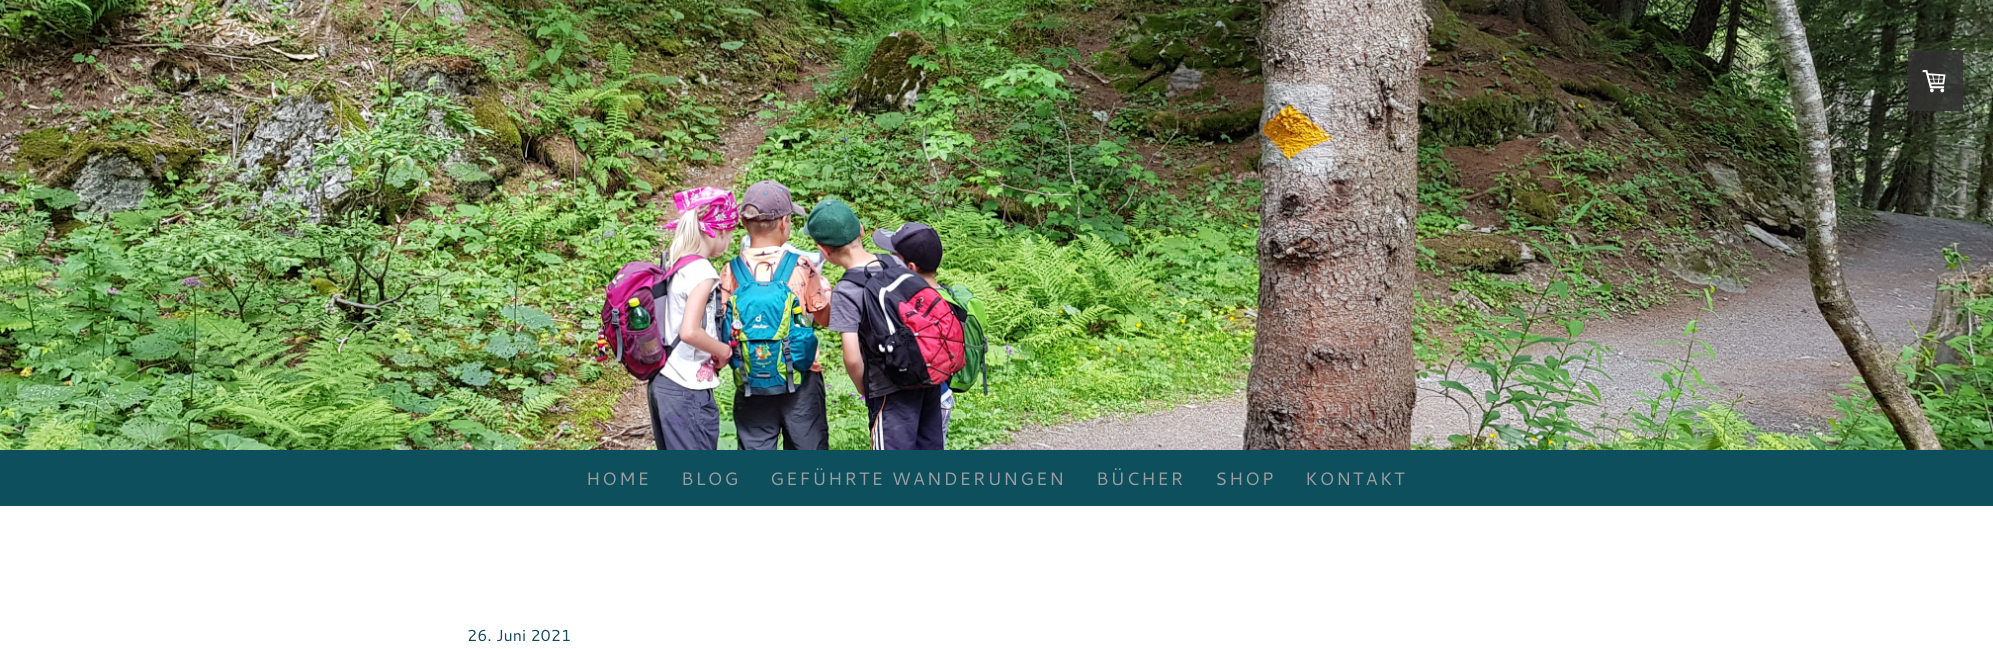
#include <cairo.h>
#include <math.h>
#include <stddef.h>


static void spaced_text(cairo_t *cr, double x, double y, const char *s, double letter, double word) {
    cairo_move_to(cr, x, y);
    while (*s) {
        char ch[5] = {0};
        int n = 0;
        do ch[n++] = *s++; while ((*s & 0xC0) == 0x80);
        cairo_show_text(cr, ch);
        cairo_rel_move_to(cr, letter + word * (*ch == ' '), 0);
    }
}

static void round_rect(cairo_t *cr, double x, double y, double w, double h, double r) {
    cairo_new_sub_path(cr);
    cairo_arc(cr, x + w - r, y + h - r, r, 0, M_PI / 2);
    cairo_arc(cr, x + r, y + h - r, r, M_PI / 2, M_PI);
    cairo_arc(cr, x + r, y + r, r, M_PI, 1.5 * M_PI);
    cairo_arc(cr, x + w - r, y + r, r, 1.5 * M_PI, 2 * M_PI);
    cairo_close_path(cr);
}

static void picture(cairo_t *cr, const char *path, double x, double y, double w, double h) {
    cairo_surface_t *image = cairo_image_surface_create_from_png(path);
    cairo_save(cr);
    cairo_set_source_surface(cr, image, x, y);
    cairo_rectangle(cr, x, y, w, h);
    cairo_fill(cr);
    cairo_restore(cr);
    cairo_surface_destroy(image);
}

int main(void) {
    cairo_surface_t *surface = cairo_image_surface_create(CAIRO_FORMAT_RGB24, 1993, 649);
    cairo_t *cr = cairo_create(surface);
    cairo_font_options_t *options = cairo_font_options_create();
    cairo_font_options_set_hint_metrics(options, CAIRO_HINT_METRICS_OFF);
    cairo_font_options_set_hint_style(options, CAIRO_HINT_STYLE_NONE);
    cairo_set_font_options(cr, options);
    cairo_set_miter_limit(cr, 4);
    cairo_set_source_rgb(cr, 1, 1, 1);
    cairo_paint(cr);
    picture(cr, "img1.png", 0, 0, 1993, 450);
    cairo_set_source_rgba(cr, 0.2, 0.2, 0.2, 0.85);
    round_rect(cr, 1908, 50, 55, 61, 1);
    cairo_fill(cr);
    picture(cr, "img2.png", 1922, 70, 24, 23);
    cairo_set_source_rgb(cr, 0.055, 0.31, 0.365);
    cairo_rectangle(cr, 0, 450, 1993, 56);
    cairo_fill(cr);
    cairo_select_font_face(cr, "Cantarell", CAIRO_FONT_SLANT_NORMAL, CAIRO_FONT_WEIGHT_NORMAL);
    cairo_set_font_size(cr, 18);
    cairo_set_source_rgb(cr, 0.616, 0.62, 0.62);
    spaced_text(cr, 586, 485, "HOME", 2, 0);
    spaced_text(cr, 681, 485, "BLOG", 2, 0);
    spaced_text(cr, 770, 485, "GEFÜHRTE WANDERUNGEN", 2, 0);
    spaced_text(cr, 1096, 485, "BÜCHER", 2, 0);
    spaced_text(cr, 1215, 485, "SHOP", 2, 0);
    spaced_text(cr, 1305, 485, "KONTAKT", 2, 0);
    cairo_set_font_size(cr, 16);
    cairo_set_source_rgb(cr, 0.055, 0.286, 0.365);
    cairo_move_to(cr, 467, 641);
    cairo_show_text(cr, "26. Juni 2021");
    cairo_surface_write_to_png(surface, "page.png");
    cairo_font_options_destroy(options);
    cairo_destroy(cr);
    cairo_surface_destroy(surface);
    return 0;
}
